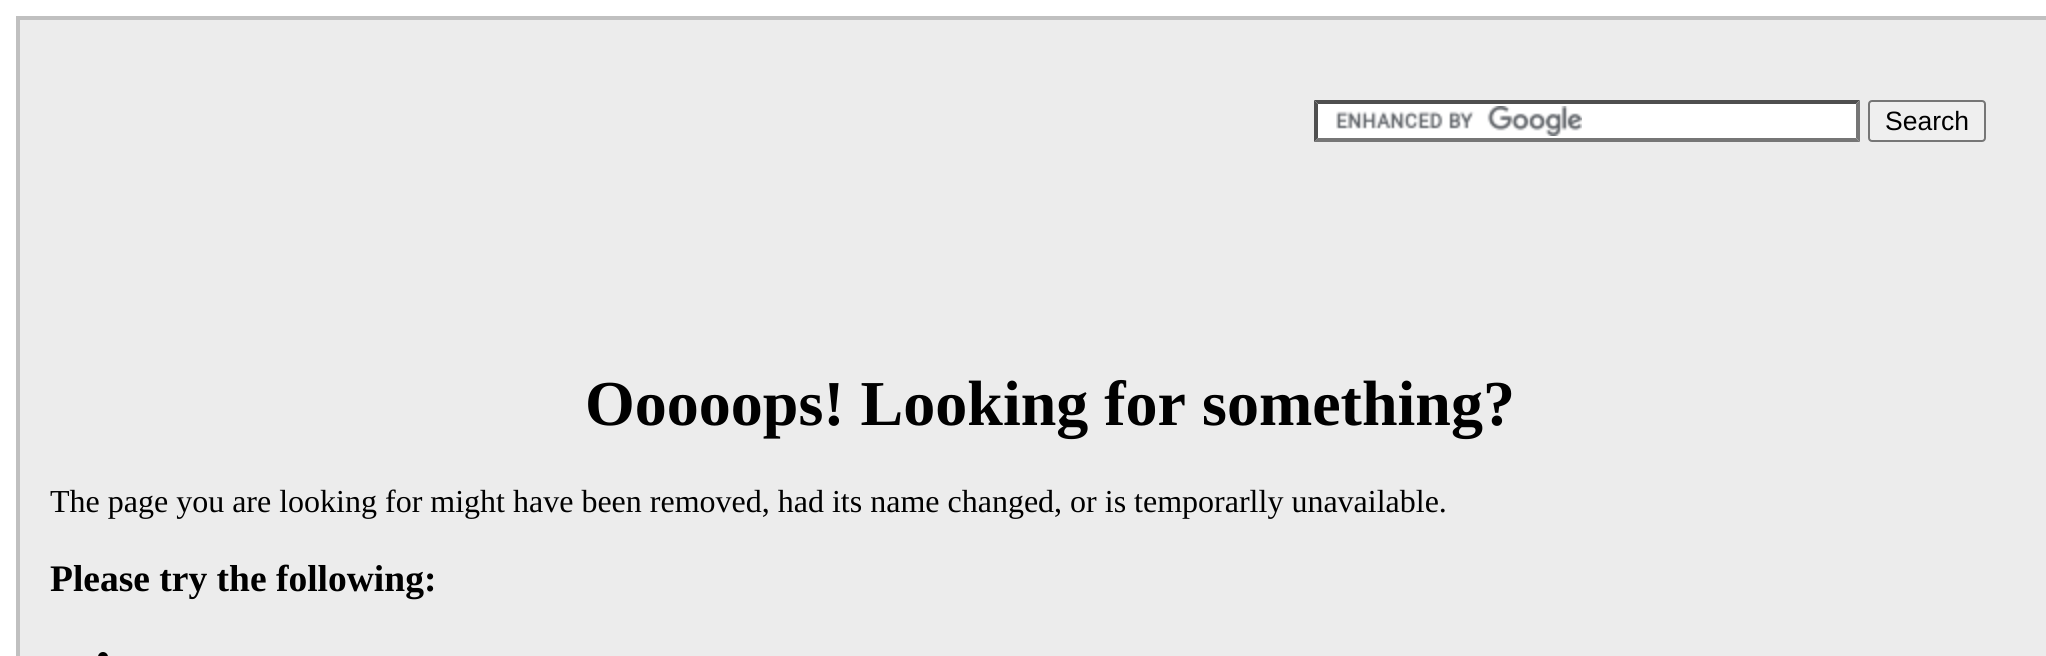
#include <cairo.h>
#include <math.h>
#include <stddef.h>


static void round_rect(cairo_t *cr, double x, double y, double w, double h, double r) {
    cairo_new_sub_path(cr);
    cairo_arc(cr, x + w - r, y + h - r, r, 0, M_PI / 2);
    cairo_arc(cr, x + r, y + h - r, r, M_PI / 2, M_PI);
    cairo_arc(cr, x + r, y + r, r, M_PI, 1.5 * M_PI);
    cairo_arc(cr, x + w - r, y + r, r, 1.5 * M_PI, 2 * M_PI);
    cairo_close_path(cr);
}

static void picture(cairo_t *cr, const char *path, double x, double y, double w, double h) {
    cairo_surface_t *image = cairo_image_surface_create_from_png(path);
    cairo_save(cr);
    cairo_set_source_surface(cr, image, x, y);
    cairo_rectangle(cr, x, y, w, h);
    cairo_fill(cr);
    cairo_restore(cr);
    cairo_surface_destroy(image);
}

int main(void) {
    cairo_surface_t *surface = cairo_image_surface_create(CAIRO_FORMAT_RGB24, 2046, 656);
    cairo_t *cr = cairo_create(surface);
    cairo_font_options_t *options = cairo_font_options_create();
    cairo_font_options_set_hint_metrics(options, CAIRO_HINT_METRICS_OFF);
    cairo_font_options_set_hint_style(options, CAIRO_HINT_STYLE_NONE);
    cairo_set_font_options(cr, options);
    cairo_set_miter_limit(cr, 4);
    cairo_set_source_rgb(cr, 1, 1, 1);
    cairo_paint(cr);
    cairo_set_source_rgb(cr, 0.922, 0.922, 0.922);
    cairo_rectangle(cr, 18, 18, 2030, 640);
    cairo_fill_preserve(cr);
    cairo_set_source_rgb(cr, 0.753, 0.753, 0.753);
    cairo_set_line_width(cr, 4);
    cairo_stroke(cr);
    cairo_set_source_rgb(cr, 1, 1, 1);
    cairo_rectangle(cr, 1314, 100, 546, 42);
    cairo_fill(cr);
    picture(cr, "img1.png", 1336, 106, 246, 30);
    cairo_set_source_rgb(cr, 0.31, 0.31, 0.31);
    cairo_new_path(cr);
    cairo_move_to(cr, 1314, 100);
    cairo_line_to(cr, 1860, 100);
    cairo_line_to(cr, 1856, 104);
    cairo_line_to(cr, 1318, 104);
    cairo_close_path(cr);
    cairo_fill(cr);
    cairo_set_source_rgb(cr, 0.463, 0.463, 0.463);
    cairo_new_path(cr);
    cairo_move_to(cr, 1860, 100);
    cairo_line_to(cr, 1860, 142);
    cairo_line_to(cr, 1856, 138);
    cairo_line_to(cr, 1856, 104);
    cairo_close_path(cr);
    cairo_fill(cr);
    cairo_new_path(cr);
    cairo_move_to(cr, 1860, 142);
    cairo_line_to(cr, 1314, 142);
    cairo_line_to(cr, 1318, 138);
    cairo_line_to(cr, 1856, 138);
    cairo_close_path(cr);
    cairo_fill(cr);
    cairo_set_source_rgb(cr, 0.31, 0.31, 0.31);
    cairo_new_path(cr);
    cairo_move_to(cr, 1314, 142);
    cairo_line_to(cr, 1314, 100);
    cairo_line_to(cr, 1318, 104);
    cairo_line_to(cr, 1318, 138);
    cairo_close_path(cr);
    cairo_fill(cr);
    cairo_set_source_rgb(cr, 0.937, 0.937, 0.937);
    round_rect(cr, 1869, 101, 116, 40, 3);
    cairo_fill_preserve(cr);
    cairo_set_source_rgb(cr, 0.463, 0.463, 0.463);
    cairo_set_line_width(cr, 2);
    cairo_stroke(cr);
    cairo_select_font_face(cr, "Liberation Sans", CAIRO_FONT_SLANT_NORMAL, CAIRO_FONT_WEIGHT_NORMAL);
    cairo_set_font_size(cr, 26.5);
    cairo_set_source_rgb(cr, 0, 0, 0);
    cairo_move_to(cr, 1885, 130);
    cairo_show_text(cr, "Search");
    cairo_select_font_face(cr, "Liberation Serif", CAIRO_FONT_SLANT_NORMAL, CAIRO_FONT_WEIGHT_BOLD);
    cairo_set_font_size(cr, 64);
    cairo_move_to(cr, 585, 425);
    cairo_show_text(cr, "Ooooops! Looking for something?");
    cairo_select_font_face(cr, "Liberation Serif", CAIRO_FONT_SLANT_NORMAL, CAIRO_FONT_WEIGHT_NORMAL);
    cairo_set_font_size(cr, 32);
    cairo_move_to(cr, 50, 512);
    cairo_show_text(cr, "The page you are looking for might have been removed, had its name changed, or is temporarlly unavailable.");
    cairo_select_font_face(cr, "Liberation Serif", CAIRO_FONT_SLANT_NORMAL, CAIRO_FONT_WEIGHT_BOLD);
    cairo_set_font_size(cr, 37.5);
    cairo_move_to(cr, 50, 591);
    cairo_show_text(cr, "Please try the following:");
    round_rect(cr, 98, 652, 10, 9, 5);
    cairo_fill(cr);
    cairo_surface_write_to_png(surface, "page.png");
    cairo_font_options_destroy(options);
    cairo_destroy(cr);
    cairo_surface_destroy(surface);
    return 0;
}
